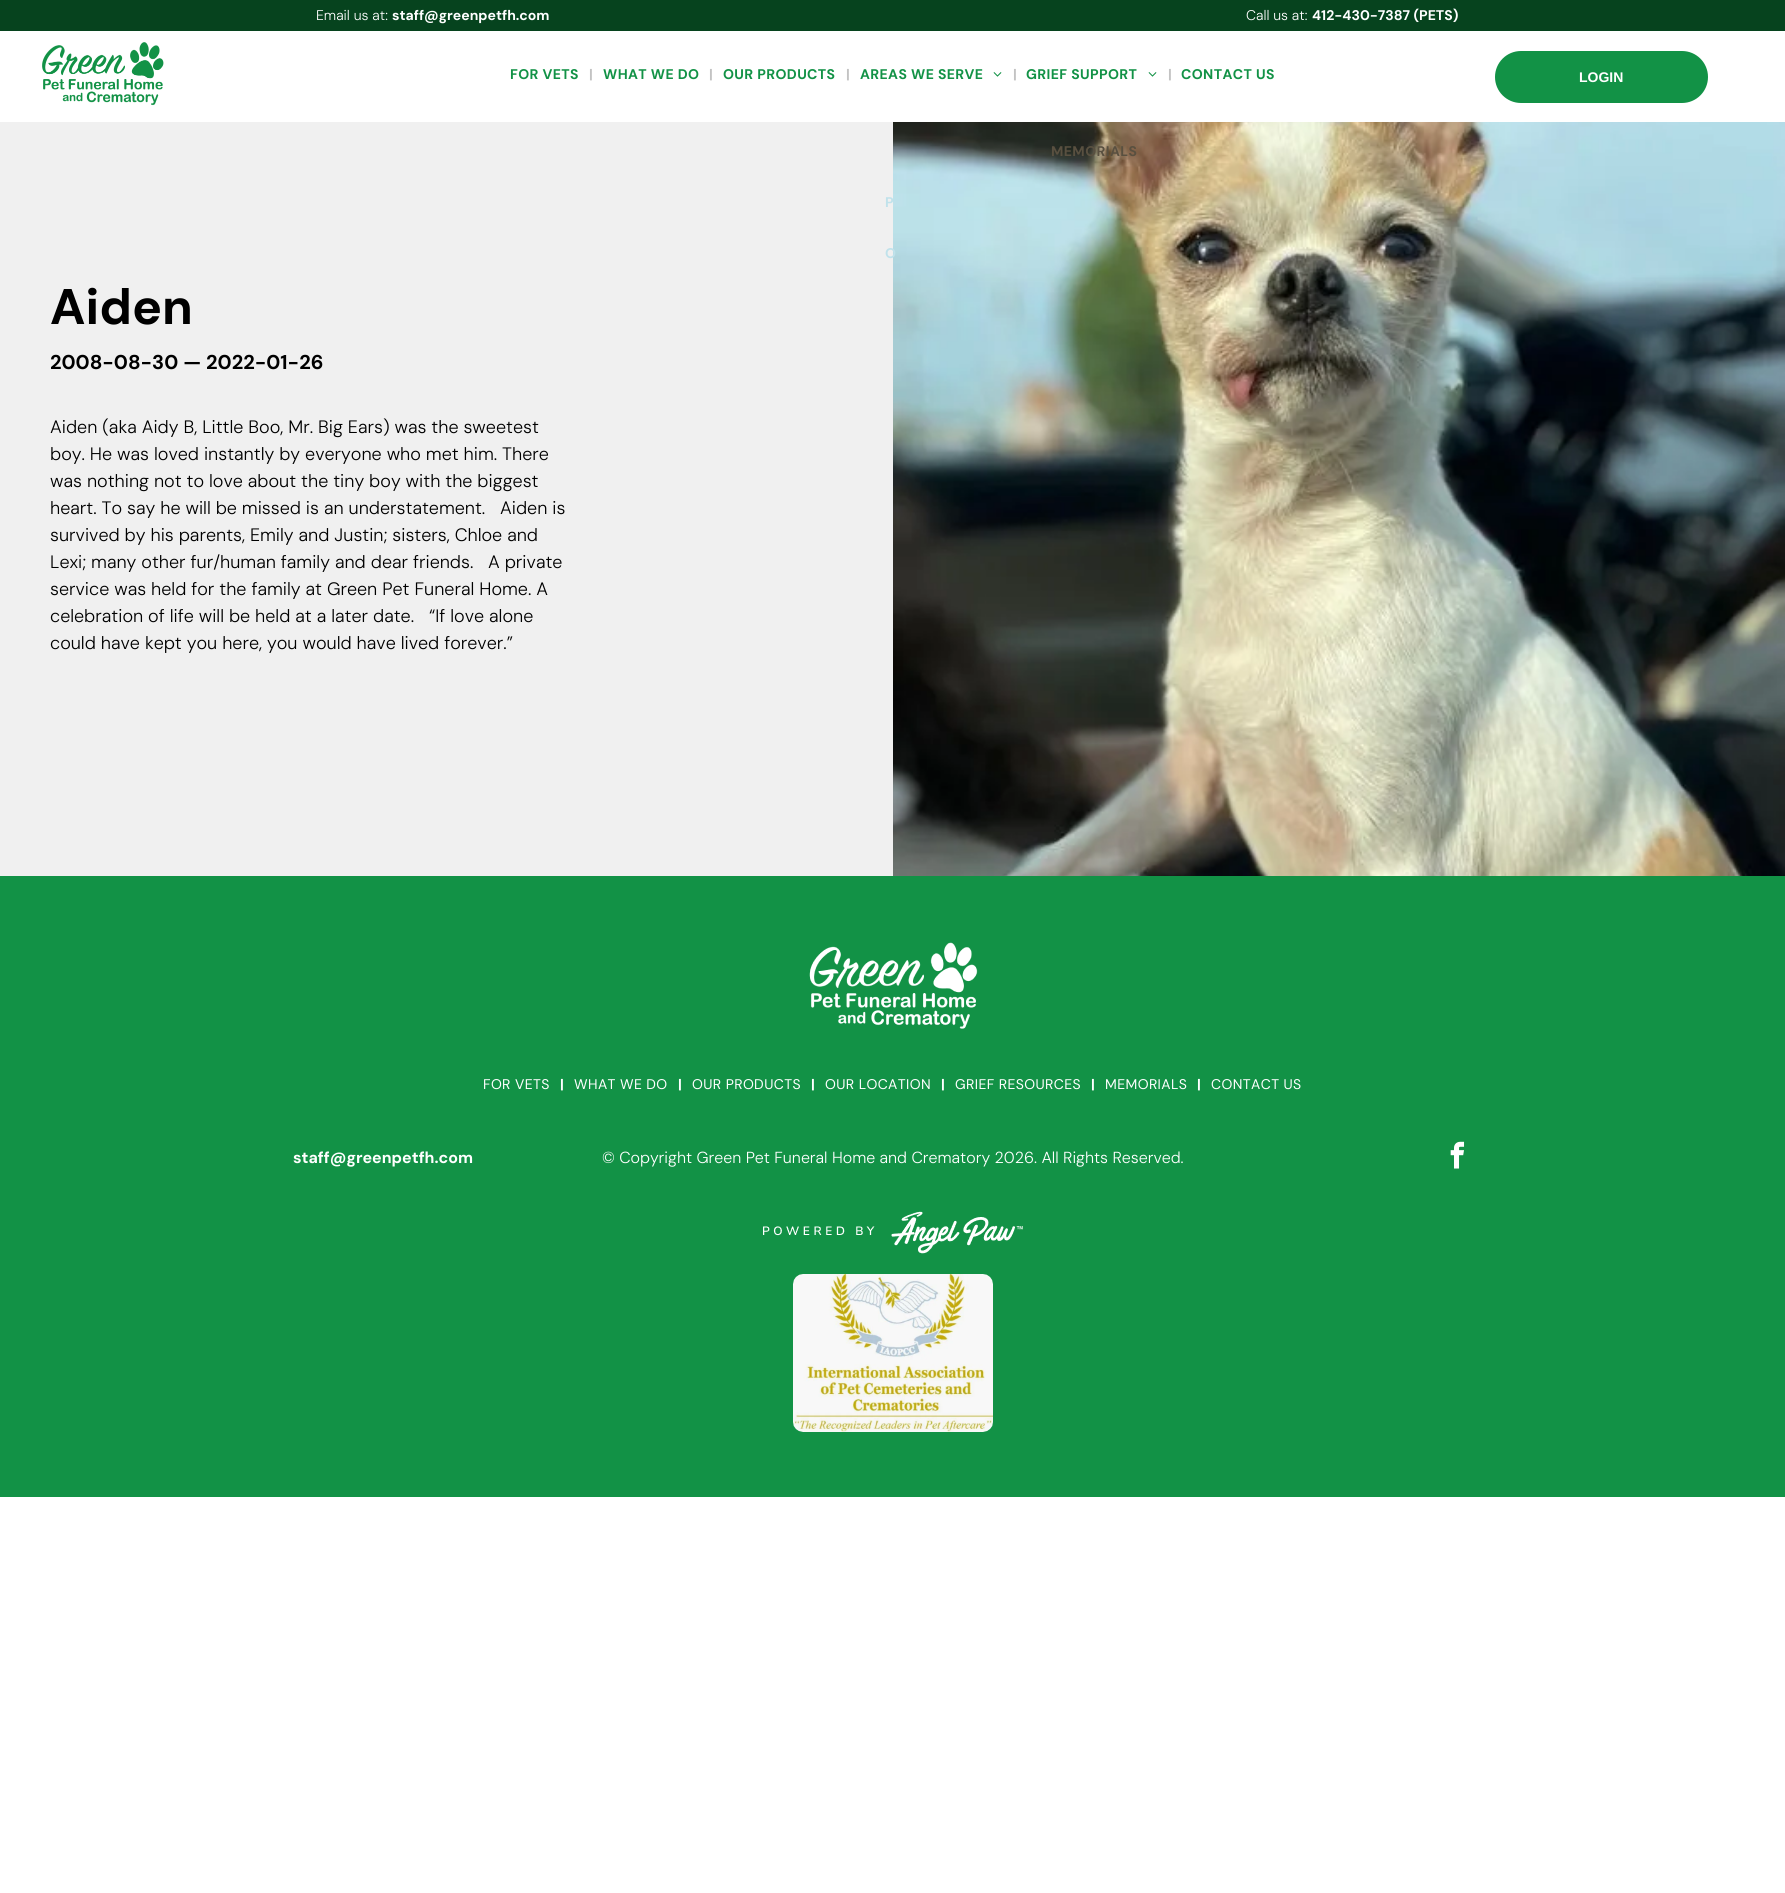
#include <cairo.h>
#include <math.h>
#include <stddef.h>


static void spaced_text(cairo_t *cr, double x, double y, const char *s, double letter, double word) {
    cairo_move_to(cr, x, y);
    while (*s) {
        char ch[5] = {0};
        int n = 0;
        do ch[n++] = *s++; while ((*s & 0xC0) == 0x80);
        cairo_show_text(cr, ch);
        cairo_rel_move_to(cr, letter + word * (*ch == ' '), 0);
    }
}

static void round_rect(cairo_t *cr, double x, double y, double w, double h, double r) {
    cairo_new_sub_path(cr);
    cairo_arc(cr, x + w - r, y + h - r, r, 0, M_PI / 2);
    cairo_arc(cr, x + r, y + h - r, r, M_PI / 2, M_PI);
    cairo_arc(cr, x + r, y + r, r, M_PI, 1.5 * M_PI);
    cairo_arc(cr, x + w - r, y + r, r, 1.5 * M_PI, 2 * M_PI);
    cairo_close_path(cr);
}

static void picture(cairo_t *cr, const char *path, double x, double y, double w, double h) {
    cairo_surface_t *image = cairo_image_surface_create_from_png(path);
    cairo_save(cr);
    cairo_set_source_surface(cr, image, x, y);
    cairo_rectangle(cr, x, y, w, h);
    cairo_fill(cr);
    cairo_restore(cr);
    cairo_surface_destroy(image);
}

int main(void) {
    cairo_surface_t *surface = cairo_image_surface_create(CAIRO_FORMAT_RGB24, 1785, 1893);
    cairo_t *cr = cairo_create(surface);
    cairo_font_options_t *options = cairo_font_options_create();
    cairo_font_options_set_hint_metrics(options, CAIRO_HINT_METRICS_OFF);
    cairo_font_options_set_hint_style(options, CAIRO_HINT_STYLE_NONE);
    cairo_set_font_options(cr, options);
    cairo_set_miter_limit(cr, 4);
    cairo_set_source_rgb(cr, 1, 1, 1);
    cairo_paint(cr);
    cairo_set_source_rgb(cr, 0.024, 0.263, 0.118);
    cairo_rectangle(cr, 0, 0, 1785, 31);
    cairo_fill(cr);
    cairo_select_font_face(cr, "DM Sans Light", CAIRO_FONT_SLANT_NORMAL, CAIRO_FONT_WEIGHT_NORMAL);
    cairo_set_font_size(cr, 14);
    cairo_set_source_rgb(cr, 1, 1, 1);
    cairo_move_to(cr, 316, 20);
    cairo_show_text(cr, "Email us at:");
    cairo_select_font_face(cr, "DM Sans", CAIRO_FONT_SLANT_NORMAL, CAIRO_FONT_WEIGHT_BOLD);
    cairo_move_to(cr, 392, 20);
    cairo_show_text(cr, "staff@greenpetfh.com");
    cairo_select_font_face(cr, "DM Sans Light", CAIRO_FONT_SLANT_NORMAL, CAIRO_FONT_WEIGHT_NORMAL);
    cairo_move_to(cr, 1246, 20);
    cairo_show_text(cr, "Call us at:");
    cairo_select_font_face(cr, "DM Sans", CAIRO_FONT_SLANT_NORMAL, CAIRO_FONT_WEIGHT_BOLD);
    cairo_move_to(cr, 1312, 20);
    cairo_show_text(cr, "412-430-7387 (PETS)");
    picture(cr, "img1.png", 42, 42, 122, 64);
    cairo_set_source_rgb(cr, 0.071, 0.573, 0.275);
    spaced_text(cr, 510, 79, "FOR VETS", 0.4, 0);
    cairo_set_source_rgb(cr, 0.765, 0.765, 0.765);
    cairo_move_to(cr, 589, 79);
    cairo_show_text(cr, "|");
    cairo_set_source_rgb(cr, 0.071, 0.573, 0.275);
    spaced_text(cr, 603, 79, "WHAT WE DO", 0.4, 0);
    cairo_set_source_rgb(cr, 0.765, 0.765, 0.765);
    cairo_move_to(cr, 709, 79);
    cairo_show_text(cr, "|");
    cairo_set_source_rgb(cr, 0.071, 0.573, 0.275);
    spaced_text(cr, 723, 79, "OUR PRODUCTS", 0.4, 0);
    cairo_set_source_rgb(cr, 0.765, 0.765, 0.765);
    cairo_move_to(cr, 846, 79);
    cairo_show_text(cr, "|");
    cairo_set_source_rgb(cr, 0.071, 0.573, 0.275);
    spaced_text(cr, 860, 79, "AREAS WE SERVE", 0.4, 0);
    picture(cr, "img2.png", 993, 72, 9, 5);
    cairo_set_source_rgb(cr, 0.765, 0.765, 0.765);
    cairo_move_to(cr, 1013, 79);
    cairo_show_text(cr, "|");
    cairo_set_source_rgb(cr, 0.941, 0.941, 0.941);
    cairo_rectangle(cr, 0, 122, 893, 754);
    cairo_fill(cr);
    cairo_set_source_rgb(cr, 0.753, 0.886, 0.918);
    spaced_text(cr, 885, 207, "P", 0.4, 0);
    picture(cr, "img3.png", 893, 122, 892, 754);
    spaced_text(cr, 885, 258, "O", 0.4, 0);
    cairo_set_source_rgb(cr, 0.071, 0.573, 0.275);
    spaced_text(cr, 1026, 79, "GRIEF SUPPORT", 0.4, 0);
    picture(cr, "img2.png", 1148, 72, 9, 5);
    cairo_set_source_rgb(cr, 0.765, 0.765, 0.765);
    cairo_move_to(cr, 1168, 79);
    cairo_show_text(cr, "|");
    cairo_set_source_rgb(cr, 0.349, 0.314, 0.251);
    spaced_text(cr, 1051, 156, "MEMORIALS", 0.4, 0);
    cairo_set_source_rgb(cr, 0.071, 0.573, 0.275);
    spaced_text(cr, 1181, 79, "CONTACT US", 0.4, 0);
    round_rect(cr, 1495, 51, 213, 52, 26);
    cairo_fill(cr);
    cairo_select_font_face(cr, "Liberation Sans", CAIRO_FONT_SLANT_NORMAL, CAIRO_FONT_WEIGHT_BOLD);
    cairo_set_source_rgb(cr, 1, 1, 1);
    cairo_move_to(cr, 1579, 82);
    cairo_show_text(cr, "LOGIN");
    cairo_select_font_face(cr, "DM Sans", CAIRO_FONT_SLANT_NORMAL, CAIRO_FONT_WEIGHT_BOLD);
    cairo_set_font_size(cr, 50);
    cairo_set_source_rgb(cr, 0, 0, 0);
    cairo_move_to(cr, 50, 324);
    cairo_show_text(cr, "Aiden");
    cairo_set_font_size(cr, 20);
    cairo_move_to(cr, 50, 369);
    cairo_show_text(cr, "2008-08-30 — 2022-01-26");
    cairo_select_font_face(cr, "DM Sans Light", CAIRO_FONT_SLANT_NORMAL, CAIRO_FONT_WEIGHT_NORMAL);
    cairo_set_font_size(cr, 18);
    cairo_move_to(cr, 50, 433);
    cairo_show_text(cr, "Aiden (aka Aidy B, Little Boo, Mr. Big Ears) was the sweetest");
    cairo_move_to(cr, 50, 460);
    cairo_show_text(cr, "boy. He was loved instantly by everyone who met him. There");
    cairo_move_to(cr, 50, 487);
    cairo_show_text(cr, "was nothing not to love about the tiny boy with the biggest");
    cairo_move_to(cr, 50, 514);
    cairo_show_text(cr, "heart. To say he will be missed is an understatement.");
    cairo_move_to(cr, 500, 514);
    cairo_show_text(cr, "Aiden is");
    cairo_move_to(cr, 50, 541);
    cairo_show_text(cr, "survived by his parents, Emily and Justin; sisters, Chloe and");
    cairo_move_to(cr, 50, 568);
    cairo_show_text(cr, "Lexi; many other fur/human family and dear friends.");
    cairo_move_to(cr, 488, 568);
    cairo_show_text(cr, "A private");
    cairo_move_to(cr, 50, 595);
    cairo_show_text(cr, "service was held for the family at Green Pet Funeral Home. A");
    cairo_move_to(cr, 50, 622);
    cairo_show_text(cr, "celebration of life will be held at a later date.");
    cairo_move_to(cr, 429, 622);
    cairo_show_text(cr, "“If love alone");
    cairo_move_to(cr, 50, 649);
    cairo_show_text(cr, "could have kept you here, you would have lived forever.”");
    cairo_set_source_rgb(cr, 0.071, 0.573, 0.275);
    cairo_rectangle(cr, 0, 876, 1785, 621);
    cairo_fill(cr);
    picture(cr, "img4.png", 809, 942, 169, 87);
    cairo_select_font_face(cr, "DM Sans", CAIRO_FONT_SLANT_NORMAL, CAIRO_FONT_WEIGHT_NORMAL);
    cairo_set_font_size(cr, 14);
    cairo_set_source_rgb(cr, 1, 1, 1);
    spaced_text(cr, 483, 1089, "FOR VETS", 0.4, 0);
    cairo_select_font_face(cr, "DM Sans", CAIRO_FONT_SLANT_NORMAL, CAIRO_FONT_WEIGHT_BOLD);
    cairo_move_to(cr, 560, 1089);
    cairo_show_text(cr, "|");
    cairo_select_font_face(cr, "DM Sans", CAIRO_FONT_SLANT_NORMAL, CAIRO_FONT_WEIGHT_NORMAL);
    spaced_text(cr, 574, 1089, "WHAT WE DO", 0.4, 0);
    cairo_select_font_face(cr, "DM Sans", CAIRO_FONT_SLANT_NORMAL, CAIRO_FONT_WEIGHT_BOLD);
    cairo_move_to(cr, 678, 1089);
    cairo_show_text(cr, "|");
    cairo_select_font_face(cr, "DM Sans", CAIRO_FONT_SLANT_NORMAL, CAIRO_FONT_WEIGHT_NORMAL);
    spaced_text(cr, 692, 1089, "OUR PRODUCTS", 0.4, 0);
    cairo_select_font_face(cr, "DM Sans", CAIRO_FONT_SLANT_NORMAL, CAIRO_FONT_WEIGHT_BOLD);
    cairo_move_to(cr, 811, 1089);
    cairo_show_text(cr, "|");
    cairo_select_font_face(cr, "DM Sans", CAIRO_FONT_SLANT_NORMAL, CAIRO_FONT_WEIGHT_NORMAL);
    spaced_text(cr, 825, 1089, "OUR LOCATION", 0.4, 0);
    cairo_select_font_face(cr, "DM Sans", CAIRO_FONT_SLANT_NORMAL, CAIRO_FONT_WEIGHT_BOLD);
    cairo_move_to(cr, 941, 1089);
    cairo_show_text(cr, "|");
    cairo_select_font_face(cr, "DM Sans", CAIRO_FONT_SLANT_NORMAL, CAIRO_FONT_WEIGHT_NORMAL);
    spaced_text(cr, 955, 1089, "GRIEF RESOURCES", 0.4, 0);
    cairo_select_font_face(cr, "DM Sans", CAIRO_FONT_SLANT_NORMAL, CAIRO_FONT_WEIGHT_BOLD);
    cairo_move_to(cr, 1091, 1089);
    cairo_show_text(cr, "|");
    cairo_select_font_face(cr, "DM Sans", CAIRO_FONT_SLANT_NORMAL, CAIRO_FONT_WEIGHT_NORMAL);
    spaced_text(cr, 1105, 1089, "MEMORIALS", 0.4, 0);
    cairo_select_font_face(cr, "DM Sans", CAIRO_FONT_SLANT_NORMAL, CAIRO_FONT_WEIGHT_BOLD);
    cairo_move_to(cr, 1197, 1089);
    cairo_show_text(cr, "|");
    cairo_select_font_face(cr, "DM Sans", CAIRO_FONT_SLANT_NORMAL, CAIRO_FONT_WEIGHT_NORMAL);
    spaced_text(cr, 1211, 1089, "CONTACT US", 0.4, 0);
    cairo_select_font_face(cr, "DM Sans", CAIRO_FONT_SLANT_NORMAL, CAIRO_FONT_WEIGHT_BOLD);
    cairo_set_font_size(cr, 16);
    cairo_move_to(cr, 293, 1163);
    cairo_show_text(cr, "staff@greenpetfh.com");
    cairo_select_font_face(cr, "DM Sans Light", CAIRO_FONT_SLANT_NORMAL, CAIRO_FONT_WEIGHT_NORMAL);
    cairo_move_to(cr, 602, 1163);
    cairo_show_text(cr, "© Copyright Green Pet Funeral Home and Crematory 2026. All Rights Reserved.");
    picture(cr, "img5.png", 1450, 1141, 15, 28);
    picture(cr, "img6.png", 763, 1211, 260, 43);
    picture(cr, "img7.png", 793, 1274, 200, 158);
    cairo_surface_write_to_png(surface, "page.png");
    cairo_font_options_destroy(options);
    cairo_destroy(cr);
    cairo_surface_destroy(surface);
    return 0;
}
